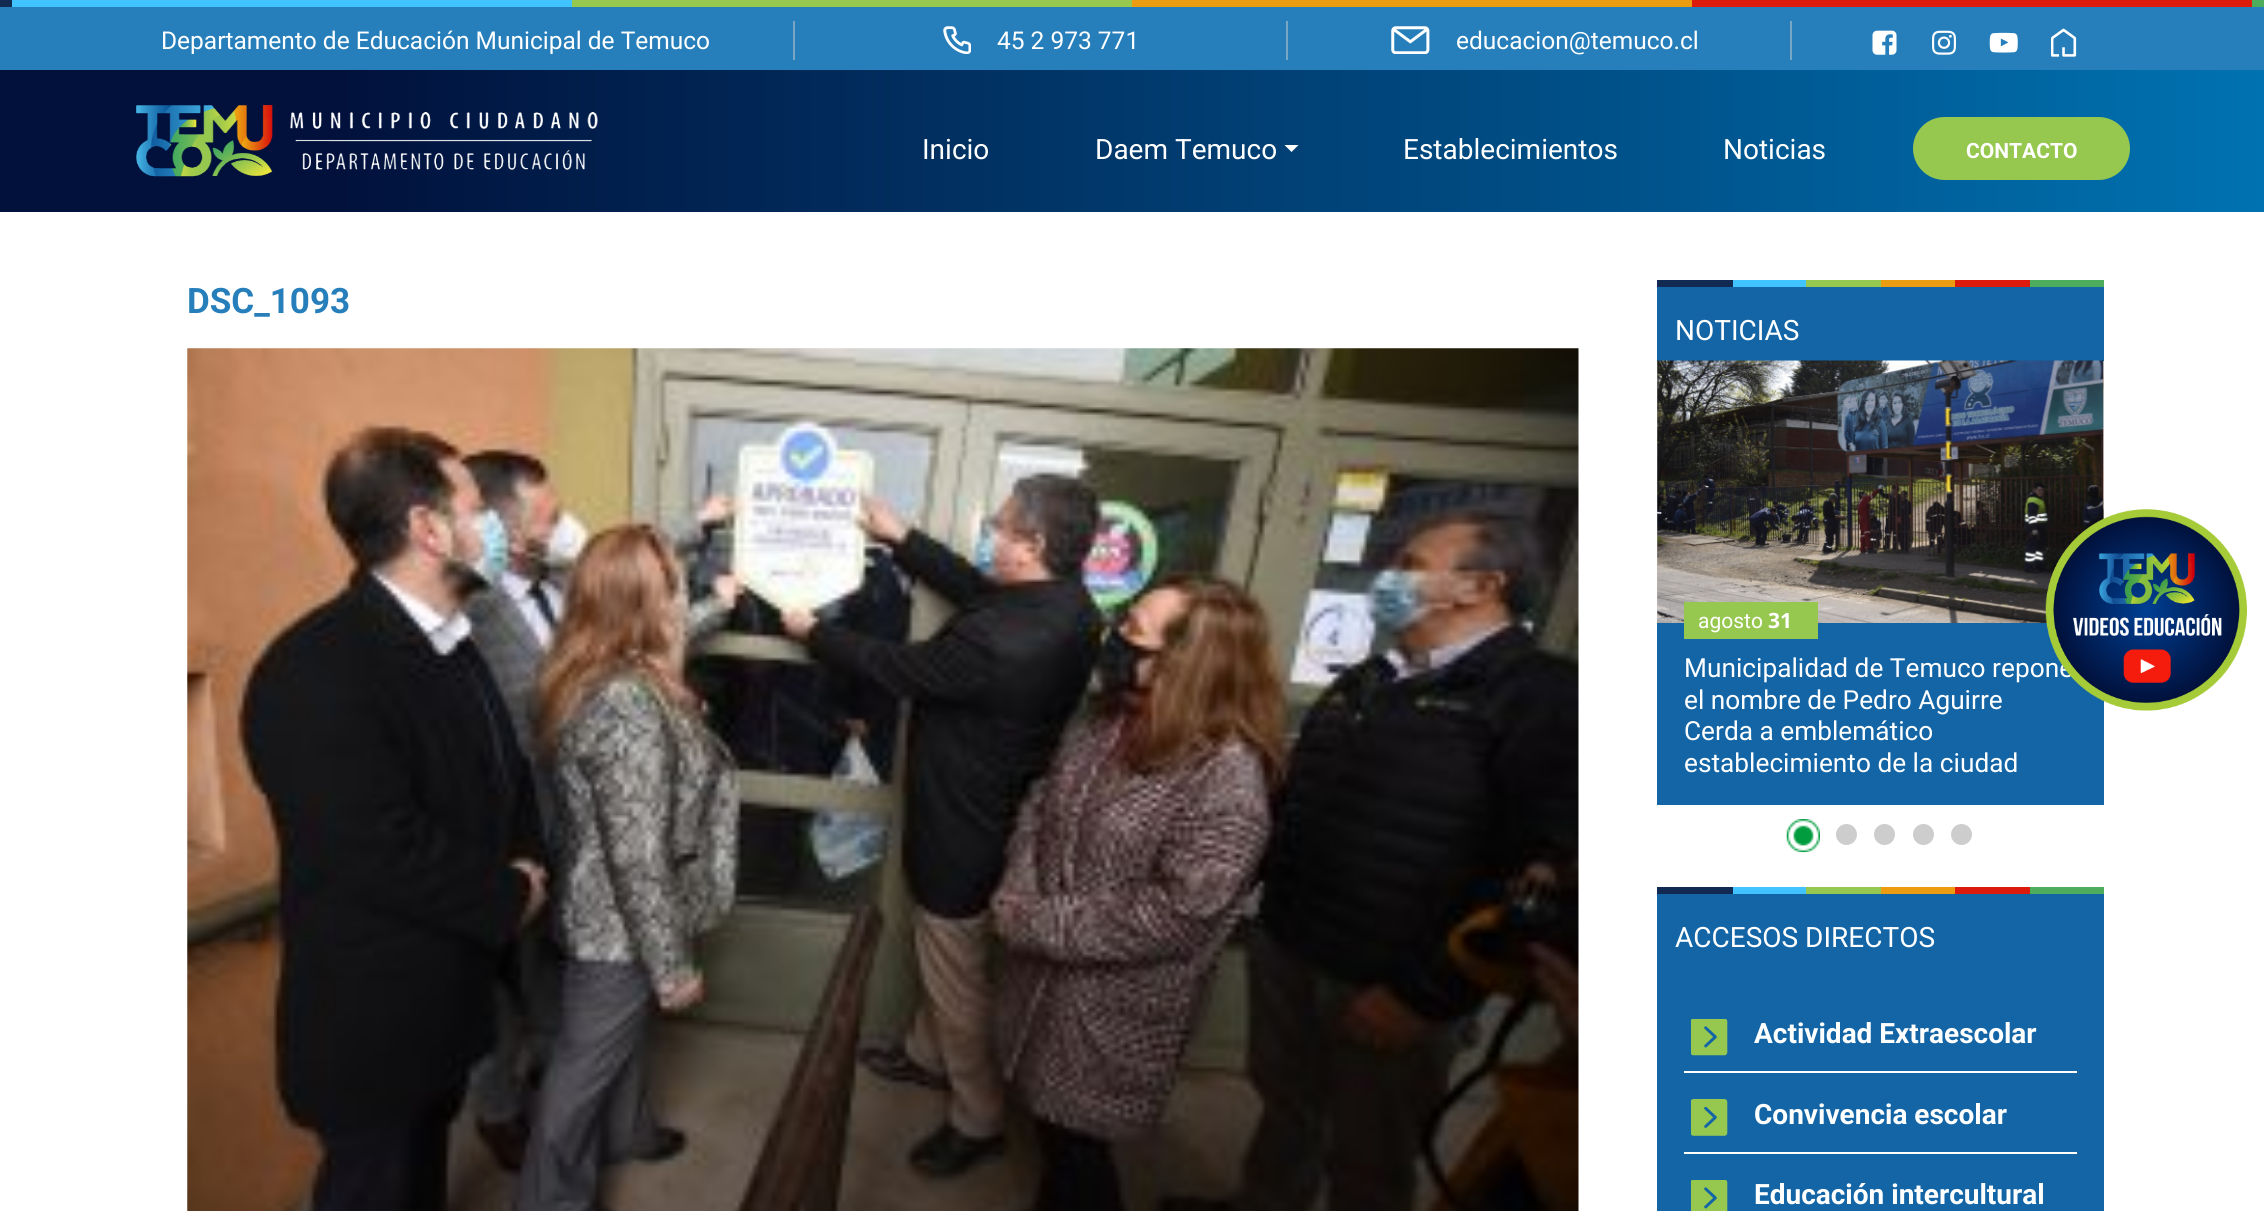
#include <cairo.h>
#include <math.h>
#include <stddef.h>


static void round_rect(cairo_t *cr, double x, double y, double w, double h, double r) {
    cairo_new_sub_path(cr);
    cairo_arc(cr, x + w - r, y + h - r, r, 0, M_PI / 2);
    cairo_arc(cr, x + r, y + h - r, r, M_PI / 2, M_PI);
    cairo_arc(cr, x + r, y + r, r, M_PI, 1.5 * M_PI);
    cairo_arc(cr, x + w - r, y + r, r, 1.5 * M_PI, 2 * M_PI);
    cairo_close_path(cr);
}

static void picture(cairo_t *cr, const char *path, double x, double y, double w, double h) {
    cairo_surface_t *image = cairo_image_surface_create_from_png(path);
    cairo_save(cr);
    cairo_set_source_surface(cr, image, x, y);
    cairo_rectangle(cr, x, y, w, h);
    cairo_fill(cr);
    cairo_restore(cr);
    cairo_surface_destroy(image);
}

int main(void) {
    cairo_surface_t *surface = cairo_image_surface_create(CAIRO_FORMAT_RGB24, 2264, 1211);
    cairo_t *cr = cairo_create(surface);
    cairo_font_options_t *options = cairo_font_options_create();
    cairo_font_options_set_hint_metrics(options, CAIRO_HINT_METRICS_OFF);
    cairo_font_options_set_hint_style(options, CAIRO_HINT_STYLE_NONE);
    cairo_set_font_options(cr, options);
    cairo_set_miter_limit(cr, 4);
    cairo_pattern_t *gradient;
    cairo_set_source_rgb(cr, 1, 1, 1);
    cairo_paint(cr);
    gradient = cairo_pattern_create_linear(0, 106, 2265, 106);
    cairo_pattern_add_color_stop_rgba(gradient, 0.15, 0.004, 0.067, 0.235, 1);
    cairo_pattern_add_color_stop_rgba(gradient, 1, 0, 0.447, 0.694, 1);
    cairo_set_source(cr, gradient);
    cairo_pattern_destroy(gradient);
    cairo_rectangle(cr, 0, 70, 2264, 142);
    cairo_fill(cr);
    cairo_set_source_rgb(cr, 0.149, 0.498, 0.733);
    cairo_rectangle(cr, 0, 7, 2264, 63);
    cairo_fill(cr);
    cairo_set_source_rgb(cr, 0.071, 0.161, 0.322);
    cairo_rectangle(cr, 0, 0, 12, 7);
    cairo_fill(cr);
    cairo_set_source_rgb(cr, 0.255, 0.765, 1);
    cairo_rectangle(cr, 12, 0, 560, 7);
    cairo_fill(cr);
    cairo_set_source_rgb(cr, 0.588, 0.78, 0.31);
    cairo_rectangle(cr, 572, 0, 560, 7);
    cairo_fill(cr);
    cairo_set_source_rgb(cr, 0.922, 0.612, 0.067);
    cairo_rectangle(cr, 1132, 0, 560, 7);
    cairo_fill(cr);
    cairo_set_source_rgb(cr, 0.863, 0.106, 0.051);
    cairo_rectangle(cr, 1692, 0, 560, 7);
    cairo_fill(cr);
    cairo_set_source_rgb(cr, 0.302, 0.678, 0.365);
    cairo_rectangle(cr, 2252, 0, 12, 7);
    cairo_fill(cr);
    cairo_select_font_face(cr, "Roboto", CAIRO_FONT_SLANT_NORMAL, CAIRO_FONT_WEIGHT_NORMAL);
    cairo_set_font_size(cr, 24.5);
    cairo_set_source_rgb(cr, 1, 1, 1);
    cairo_move_to(cr, 161, 49);
    cairo_show_text(cr, "Departamento de Educación Municipal de Temuco");
    cairo_set_source_rgb(cr, 0.475, 0.651, 0.769);
    cairo_rectangle(cr, 1286, 21, 2, 39);
    cairo_fill(cr);
    cairo_rectangle(cr, 793, 21, 2, 39);
    cairo_fill(cr);
    picture(cr, "img1.png", 943, 26, 28, 28);
    cairo_set_source_rgb(cr, 1, 1, 1);
    cairo_move_to(cr, 997, 49);
    cairo_show_text(cr, "45 2 973 771");
    cairo_set_source_rgb(cr, 0.475, 0.651, 0.769);
    cairo_rectangle(cr, 1790, 21, 2, 39);
    cairo_fill(cr);
    picture(cr, "img2.png", 1391, 26, 39, 28);
    cairo_set_source_rgb(cr, 1, 1, 1);
    cairo_move_to(cr, 1456, 49);
    cairo_show_text(cr, "educacion@temuco.cl");
    picture(cr, "img3.png", 1872, 30, 25, 25);
    picture(cr, "img4.png", 1932, 30, 24, 25);
    picture(cr, "img5.png", 1989, 32, 29, 21);
    picture(cr, "img6.png", 2051, 28, 26, 29);
    picture(cr, "img7.png", 136, 105, 462, 72);
    cairo_set_font_size(cr, 28);
    cairo_move_to(cr, 922, 159);
    cairo_show_text(cr, "Inicio");
    cairo_move_to(cr, 1095, 159);
    cairo_show_text(cr, "Daem Temuco");
    cairo_new_path(cr);
    cairo_move_to(cr, 1284.5, 145);
    cairo_line_to(cr, 1298.5, 145);
    cairo_line_to(cr, 1291.5, 152);
    cairo_close_path(cr);
    cairo_fill(cr);
    cairo_move_to(cr, 1403, 159);
    cairo_show_text(cr, "Establecimientos");
    cairo_move_to(cr, 1723, 159);
    cairo_show_text(cr, "Noticias");
    cairo_set_source_rgb(cr, 0.588, 0.78, 0.31);
    round_rect(cr, 1913, 117, 217, 63, 31.5);
    cairo_fill(cr);
    cairo_select_font_face(cr, "Roboto", CAIRO_FONT_SLANT_NORMAL, CAIRO_FONT_WEIGHT_BOLD);
    cairo_set_font_size(cr, 21);
    cairo_set_source_rgb(cr, 1, 1, 1);
    cairo_move_to(cr, 1966, 158);
    cairo_show_text(cr, "CONTACTO");
    cairo_set_font_size(cr, 35);
    cairo_set_source_rgb(cr, 0.149, 0.498, 0.733);
    cairo_move_to(cr, 187, 313);
    cairo_show_text(cr, "DSC_1093");
    picture(cr, "img8.png", 187, 348, 1392, 863);
    cairo_set_source_rgb(cr, 0.078, 0.396, 0.651);
    cairo_rectangle(cr, 1657, 287, 447, 74);
    cairo_fill(cr);
    cairo_set_source_rgb(cr, 0.071, 0.161, 0.322);
    cairo_rectangle(cr, 1657, 280, 76, 7);
    cairo_fill(cr);
    cairo_set_source_rgb(cr, 0.255, 0.765, 1);
    cairo_rectangle(cr, 1733, 280, 73, 7);
    cairo_fill(cr);
    cairo_set_source_rgb(cr, 0.588, 0.78, 0.31);
    cairo_rectangle(cr, 1806, 280, 75, 7);
    cairo_fill(cr);
    cairo_set_source_rgb(cr, 0.922, 0.612, 0.067);
    cairo_rectangle(cr, 1881, 280, 74, 7);
    cairo_fill(cr);
    cairo_set_source_rgb(cr, 0.863, 0.106, 0.051);
    cairo_rectangle(cr, 1955, 280, 75, 7);
    cairo_fill(cr);
    cairo_set_source_rgb(cr, 0.302, 0.678, 0.365);
    cairo_rectangle(cr, 2030, 280, 74, 7);
    cairo_fill(cr);
    cairo_select_font_face(cr, "Roboto", CAIRO_FONT_SLANT_NORMAL, CAIRO_FONT_WEIGHT_NORMAL);
    cairo_set_font_size(cr, 28);
    cairo_set_source_rgb(cr, 1, 1, 1);
    cairo_move_to(cr, 1675, 340);
    cairo_show_text(cr, "NOTICIAS");
    picture(cr, "img9.png", 1657, 361, 1, 262);
    picture(cr, "img11.png", 1657, 360, 447, 263);
    picture(cr, "img10.png", 2103, 361, 1, 159);
    cairo_set_source_rgb(cr, 0.078, 0.396, 0.651);
    cairo_rectangle(cr, 1657, 623, 447, 182);
    cairo_fill(cr);
    cairo_set_source_rgb(cr, 0.588, 0.78, 0.31);
    cairo_rectangle(cr, 1684, 602, 134, 37);
    cairo_fill(cr);
    cairo_set_font_size(cr, 21);
    cairo_set_source_rgb(cr, 1, 1, 1);
    cairo_move_to(cr, 1698, 628);
    cairo_show_text(cr, "agosto");
    cairo_select_font_face(cr, "Open Sans", CAIRO_FONT_SLANT_NORMAL, CAIRO_FONT_WEIGHT_BOLD);
    cairo_move_to(cr, 1768, 628);
    cairo_show_text(cr, "31");
    cairo_select_font_face(cr, "Roboto", CAIRO_FONT_SLANT_NORMAL, CAIRO_FONT_WEIGHT_NORMAL);
    cairo_set_font_size(cr, 26.25);
    cairo_move_to(cr, 1684, 677);
    cairo_show_text(cr, "Municipalidad de Temuco repone");
    cairo_move_to(cr, 1684, 709);
    cairo_show_text(cr, "el nombre de Pedro Aguirre");
    cairo_move_to(cr, 1684, 740);
    cairo_show_text(cr, "Cerda a emblemático");
    cairo_move_to(cr, 1684, 772);
    cairo_show_text(cr, "establecimiento de la ciudad");
    picture(cr, "img12.png", 1786, 819, 34, 34);
    cairo_set_source_rgb(cr, 0.804, 0.804, 0.804);
    cairo_arc(cr, 1846.5, 834.5, 10.5, 0, 2 * M_PI);
    cairo_fill(cr);
    cairo_arc(cr, 1884.5, 834.5, 10.5, 0, 2 * M_PI);
    cairo_fill(cr);
    cairo_arc(cr, 1923.5, 834.5, 10.5, 0, 2 * M_PI);
    cairo_fill(cr);
    cairo_arc(cr, 1961.5, 834.5, 10.5, 0, 2 * M_PI);
    cairo_fill(cr);
    cairo_set_source_rgb(cr, 0.071, 0.161, 0.322);
    cairo_rectangle(cr, 1657, 887, 76, 7);
    cairo_fill(cr);
    cairo_set_source_rgb(cr, 0.255, 0.765, 1);
    cairo_rectangle(cr, 1733, 887, 73, 7);
    cairo_fill(cr);
    cairo_set_source_rgb(cr, 0.588, 0.78, 0.31);
    cairo_rectangle(cr, 1806, 887, 75, 7);
    cairo_fill(cr);
    cairo_set_source_rgb(cr, 0.922, 0.612, 0.067);
    cairo_rectangle(cr, 1881, 887, 74, 7);
    cairo_fill(cr);
    cairo_set_source_rgb(cr, 0.863, 0.106, 0.051);
    cairo_rectangle(cr, 1955, 887, 75, 7);
    cairo_fill(cr);
    cairo_set_source_rgb(cr, 0.302, 0.678, 0.365);
    cairo_rectangle(cr, 2030, 887, 74, 7);
    cairo_fill(cr);
    cairo_set_source_rgb(cr, 0.078, 0.396, 0.651);
    cairo_rectangle(cr, 1657, 894, 447, 317);
    cairo_fill(cr);
    cairo_set_font_size(cr, 28);
    cairo_set_source_rgb(cr, 1, 1, 1);
    cairo_move_to(cr, 1675, 947);
    cairo_show_text(cr, "ACCESOS DIRECTOS");
    cairo_rectangle(cr, 1684, 1071, 393, 2);
    cairo_fill(cr);
    picture(cr, "img13.png", 1691, 1019, 37, 37);
    cairo_select_font_face(cr, "Roboto", CAIRO_FONT_SLANT_NORMAL, CAIRO_FONT_WEIGHT_BOLD);
    cairo_move_to(cr, 1754, 1043);
    cairo_show_text(cr, "Actividad Extraescolar");
    cairo_rectangle(cr, 1684, 1152, 393, 2);
    cairo_fill(cr);
    picture(cr, "img14.png", 1691, 1099, 37, 37);
    cairo_move_to(cr, 1754, 1124);
    cairo_show_text(cr, "Convivencia escolar");
    picture(cr, "img15.png", 1691, 1180, 37, 31);
    cairo_move_to(cr, 1754, 1204);
    cairo_show_text(cr, "Educación intercultural");
    picture(cr, "img16.png", 2045, 509, 202, 202);
    cairo_surface_write_to_png(surface, "page.png");
    cairo_font_options_destroy(options);
    cairo_destroy(cr);
    cairo_surface_destroy(surface);
    return 0;
}
